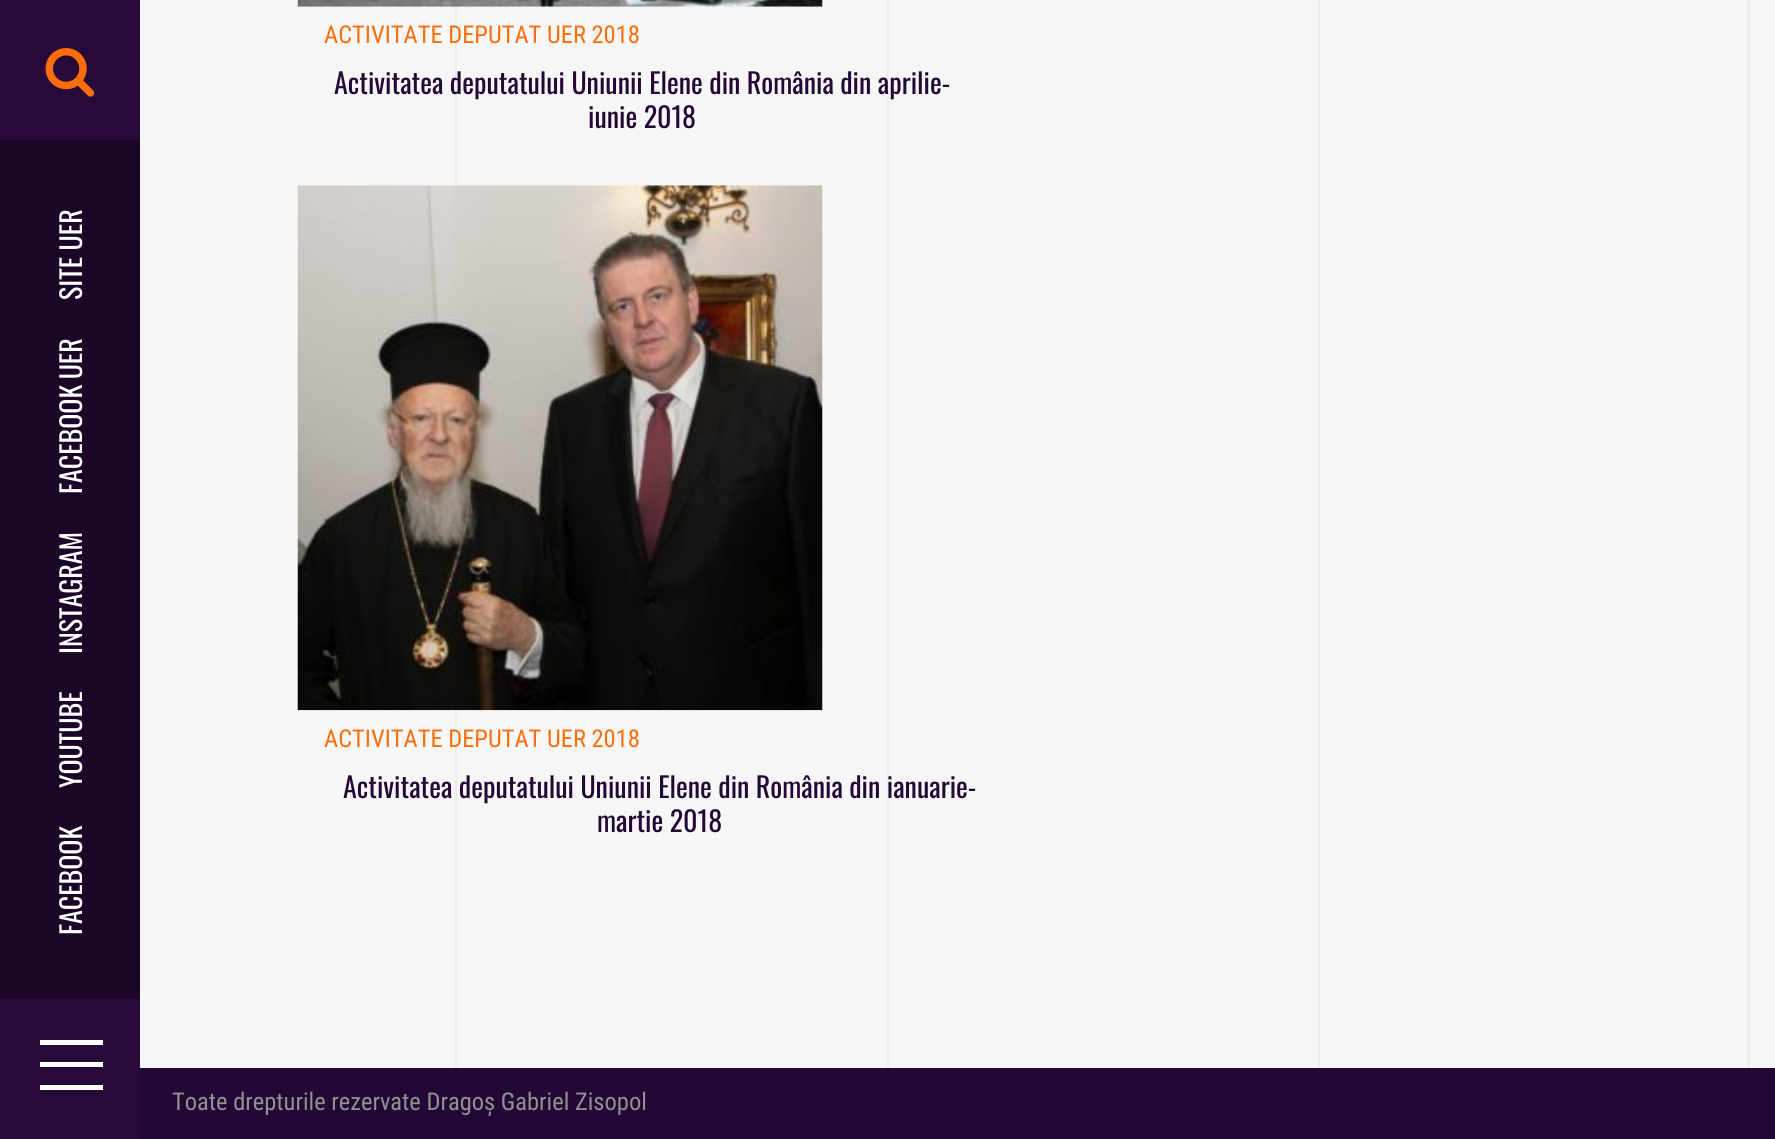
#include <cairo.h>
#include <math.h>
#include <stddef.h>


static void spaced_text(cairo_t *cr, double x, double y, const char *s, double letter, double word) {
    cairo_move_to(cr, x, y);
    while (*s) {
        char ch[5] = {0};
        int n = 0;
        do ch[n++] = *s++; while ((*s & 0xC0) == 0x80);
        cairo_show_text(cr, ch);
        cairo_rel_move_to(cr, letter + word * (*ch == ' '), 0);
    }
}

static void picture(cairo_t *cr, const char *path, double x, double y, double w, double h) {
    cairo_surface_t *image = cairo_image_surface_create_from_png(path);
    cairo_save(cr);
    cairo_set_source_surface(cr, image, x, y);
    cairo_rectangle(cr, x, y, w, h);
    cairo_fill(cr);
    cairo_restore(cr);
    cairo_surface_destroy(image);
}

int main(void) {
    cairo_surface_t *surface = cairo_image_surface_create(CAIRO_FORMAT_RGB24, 1775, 1139);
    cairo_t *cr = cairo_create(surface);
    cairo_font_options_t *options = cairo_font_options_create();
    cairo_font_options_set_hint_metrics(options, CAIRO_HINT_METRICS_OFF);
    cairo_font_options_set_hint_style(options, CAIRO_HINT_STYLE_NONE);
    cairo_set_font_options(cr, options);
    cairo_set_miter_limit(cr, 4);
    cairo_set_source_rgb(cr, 0.961, 0.961, 0.961);
    cairo_paint(cr);
    cairo_set_source_rgb(cr, 0.925, 0.925, 0.925);
    cairo_rectangle(cr, 455, 0, 2, 1068);
    cairo_fill(cr);
    cairo_rectangle(cr, 887, 0, 2, 1068);
    cairo_fill(cr);
    cairo_rectangle(cr, 1318, 0, 2, 1068);
    cairo_fill(cr);
    cairo_rectangle(cr, 1748, 0, 2, 1068);
    cairo_fill(cr);
    cairo_set_source_rgb(cr, 0.106, 0.027, 0.157);
    cairo_rectangle(cr, 0, 140, 140, 859);
    cairo_fill(cr);
    cairo_set_source_rgb(cr, 0.153, 0.039, 0.227);
    cairo_rectangle(cr, 0, 0, 140, 140);
    cairo_fill(cr);
    picture(cr, "img1.png", 45, 48, 50, 49);
    cairo_select_font_face(cr, "Oswald", CAIRO_FONT_SLANT_NORMAL, CAIRO_FONT_WEIGHT_NORMAL);
    cairo_set_font_size(cr, 28);
    cairo_set_source_rgb(cr, 1, 1, 1);
    cairo_save(cr);
    cairo_translate(cr, 82, 300);
    cairo_rotate(cr, -90 * M_PI / 180);
    cairo_move_to(cr, 0, 0);
    cairo_show_text(cr, "SITE UER");
    cairo_restore(cr);
    cairo_save(cr);
    cairo_translate(cr, 82, 494);
    cairo_rotate(cr, -90 * M_PI / 180);
    spaced_text(cr, 0, 0, "FACEBOOK UER", 0, -1);
    cairo_restore(cr);
    cairo_save(cr);
    cairo_translate(cr, 82, 654);
    cairo_rotate(cr, -90 * M_PI / 180);
    cairo_move_to(cr, 0, 0);
    cairo_show_text(cr, "INSTAGRAM");
    cairo_restore(cr);
    cairo_save(cr);
    cairo_translate(cr, 82, 788);
    cairo_rotate(cr, -90 * M_PI / 180);
    cairo_move_to(cr, 0, 0);
    cairo_show_text(cr, "YOUTUBE");
    cairo_restore(cr);
    cairo_save(cr);
    cairo_translate(cr, 82, 935);
    cairo_rotate(cr, -90 * M_PI / 180);
    cairo_move_to(cr, 0, 0);
    cairo_show_text(cr, "FACEBOOK");
    cairo_restore(cr);
    cairo_set_source_rgb(cr, 0.153, 0.039, 0.227);
    cairo_rectangle(cr, 0, 999, 140, 140);
    cairo_fill(cr);
    cairo_set_source_rgb(cr, 1, 1, 1);
    cairo_rectangle(cr, 40, 1040, 63, 5);
    cairo_fill(cr);
    cairo_rectangle(cr, 40, 1062, 63, 5);
    cairo_fill(cr);
    cairo_rectangle(cr, 40, 1085, 63, 5);
    cairo_fill(cr);
    picture(cr, "img2.png", 297, 0, 526, 7);
    cairo_select_font_face(cr, "Roboto Condensed", CAIRO_FONT_SLANT_NORMAL, CAIRO_FONT_WEIGHT_NORMAL);
    cairo_set_font_size(cr, 24.5);
    cairo_set_source_rgb(cr, 0.976, 0.427, 0.043);
    cairo_move_to(cr, 324, 43);
    cairo_show_text(cr, "ACTIVITATE DEPUTAT UER 2018");
    cairo_select_font_face(cr, "Oswald", CAIRO_FONT_SLANT_NORMAL, CAIRO_FONT_WEIGHT_NORMAL);
    cairo_set_font_size(cr, 28);
    cairo_set_source_rgb(cr, 0.137, 0.035, 0.208);
    cairo_move_to(cr, 334, 94);
    cairo_show_text(cr, "Activitatea deputatului Uniunii Elene din România din aprilie-");
    cairo_move_to(cr, 588, 128);
    cairo_show_text(cr, "iunie 2018");
    picture(cr, "img3.png", 297, 185, 526, 526);
    cairo_select_font_face(cr, "Roboto Condensed", CAIRO_FONT_SLANT_NORMAL, CAIRO_FONT_WEIGHT_NORMAL);
    cairo_set_font_size(cr, 24.5);
    cairo_set_source_rgb(cr, 0.976, 0.427, 0.043);
    cairo_move_to(cr, 324, 747);
    cairo_show_text(cr, "ACTIVITATE DEPUTAT UER 2018");
    cairo_select_font_face(cr, "Oswald", CAIRO_FONT_SLANT_NORMAL, CAIRO_FONT_WEIGHT_NORMAL);
    cairo_set_font_size(cr, 28);
    cairo_set_source_rgb(cr, 0.137, 0.035, 0.208);
    cairo_move_to(cr, 343, 798);
    cairo_show_text(cr, "Activitatea deputatului Uniunii Elene din România din ianuarie-");
    cairo_move_to(cr, 597, 832);
    cairo_show_text(cr, "martie 2018");
    cairo_rectangle(cr, 140, 1068, 1635, 71);
    cairo_fill(cr);
    cairo_select_font_face(cr, "Roboto Condensed", CAIRO_FONT_SLANT_NORMAL, CAIRO_FONT_WEIGHT_NORMAL);
    cairo_set_font_size(cr, 24.5);
    cairo_set_source_rgb(cr, 0.569, 0.569, 0.569);
    cairo_move_to(cr, 172, 1110);
    cairo_show_text(cr, "Toate drepturile rezervate Dragoș Gabriel Zisopol");
    cairo_surface_write_to_png(surface, "page.png");
    cairo_font_options_destroy(options);
    cairo_destroy(cr);
    cairo_surface_destroy(surface);
    return 0;
}
